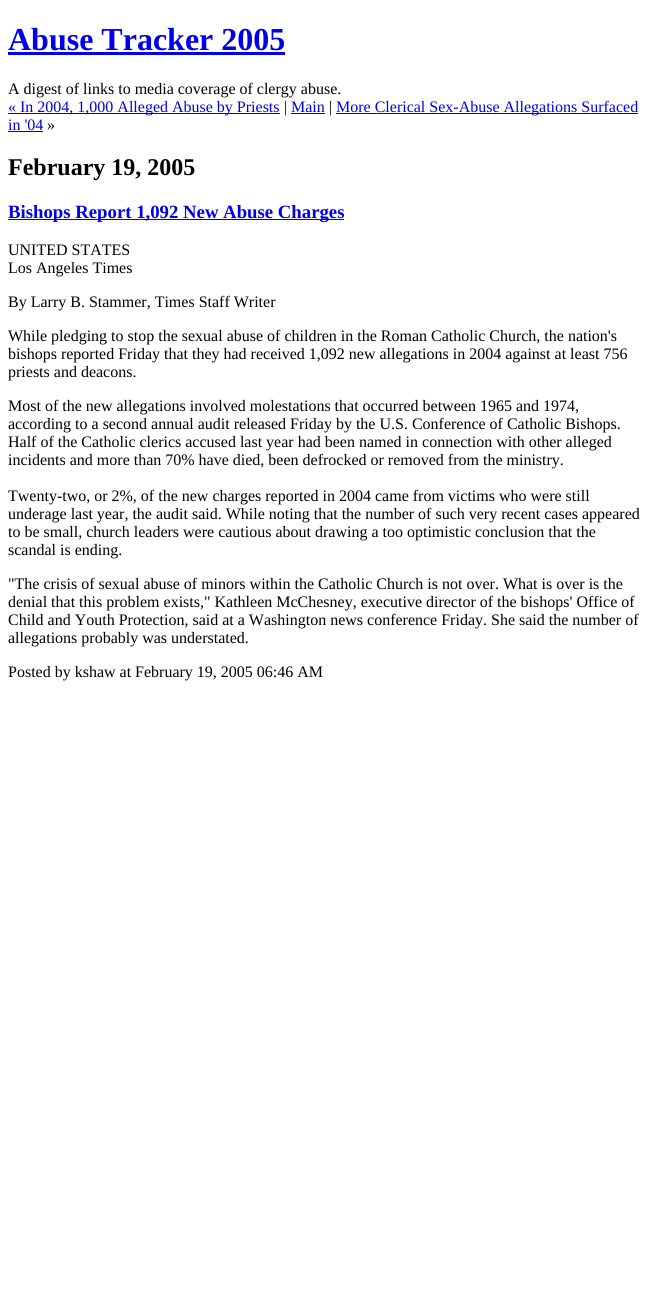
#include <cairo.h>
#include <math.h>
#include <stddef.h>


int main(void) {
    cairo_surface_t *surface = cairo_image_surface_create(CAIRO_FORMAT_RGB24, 651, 1303);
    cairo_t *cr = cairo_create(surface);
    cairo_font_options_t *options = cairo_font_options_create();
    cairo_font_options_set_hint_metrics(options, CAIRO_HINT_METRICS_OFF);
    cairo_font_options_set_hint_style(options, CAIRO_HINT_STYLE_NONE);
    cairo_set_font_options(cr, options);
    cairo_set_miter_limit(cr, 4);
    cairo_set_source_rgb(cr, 1, 1, 1);
    cairo_paint(cr);
    cairo_select_font_face(cr, "Liberation Serif", CAIRO_FONT_SLANT_NORMAL, CAIRO_FONT_WEIGHT_BOLD);
    cairo_set_font_size(cr, 32);
    cairo_set_source_rgb(cr, 0, 0, 0.933);
    cairo_move_to(cr, 8, 50);
    cairo_show_text(cr, "Abuse Tracker 2005");
    cairo_rectangle(cr, 8, 52, 277, 3);
    cairo_fill(cr);
    cairo_select_font_face(cr, "Liberation Serif", CAIRO_FONT_SLANT_NORMAL, CAIRO_FONT_WEIGHT_NORMAL);
    cairo_set_font_size(cr, 16);
    cairo_set_source_rgb(cr, 0, 0, 0);
    cairo_move_to(cr, 8, 94);
    cairo_show_text(cr, "A digest of links to media coverage of clergy abuse.");
    cairo_set_source_rgb(cr, 0, 0, 0.933);
    cairo_rectangle(cr, 8, 113, 272, 1);
    cairo_fill(cr);
    cairo_move_to(cr, 8, 112);
    cairo_show_text(cr, "« In 2004, 1,000 Alleged Abuse by Priests");
    cairo_set_source_rgb(cr, 0, 0, 0);
    cairo_move_to(cr, 284, 112);
    cairo_show_text(cr, "|");
    cairo_set_source_rgb(cr, 0, 0, 0.933);
    cairo_move_to(cr, 291, 112);
    cairo_show_text(cr, "Main");
    cairo_rectangle(cr, 291, 113, 34, 1);
    cairo_fill(cr);
    cairo_set_source_rgb(cr, 0, 0, 0);
    cairo_move_to(cr, 329, 112);
    cairo_show_text(cr, "|");
    cairo_set_source_rgb(cr, 0, 0, 0.933);
    cairo_rectangle(cr, 336, 113, 302, 1);
    cairo_fill(cr);
    cairo_move_to(cr, 336, 112);
    cairo_show_text(cr, "More Clerical Sex-Abuse Allegations Surfaced");
    cairo_move_to(cr, 8, 130);
    cairo_show_text(cr, "in '04");
    cairo_rectangle(cr, 8, 131, 35, 1);
    cairo_fill(cr);
    cairo_set_source_rgb(cr, 0, 0, 0);
    cairo_move_to(cr, 47, 130);
    cairo_show_text(cr, "»");
    cairo_select_font_face(cr, "Liberation Serif", CAIRO_FONT_SLANT_NORMAL, CAIRO_FONT_WEIGHT_BOLD);
    cairo_set_font_size(cr, 24);
    cairo_move_to(cr, 8, 175);
    cairo_show_text(cr, "February 19, 2005");
    cairo_set_source_rgb(cr, 0, 0, 0.933);
    cairo_rectangle(cr, 8, 219, 336, 1);
    cairo_fill(cr);
    cairo_set_font_size(cr, 18.75);
    cairo_move_to(cr, 8, 218);
    cairo_show_text(cr, "Bishops Report 1,092 New Abuse Charges");
    cairo_select_font_face(cr, "Liberation Serif", CAIRO_FONT_SLANT_NORMAL, CAIRO_FONT_WEIGHT_NORMAL);
    cairo_set_font_size(cr, 16);
    cairo_set_source_rgb(cr, 0, 0, 0);
    cairo_move_to(cr, 8, 255);
    cairo_show_text(cr, "UNITED STATES");
    cairo_move_to(cr, 8, 273);
    cairo_show_text(cr, "Los Angeles Times");
    cairo_move_to(cr, 8, 307);
    cairo_show_text(cr, "By Larry B. Stammer, Times Staff Writer");
    cairo_move_to(cr, 8, 341);
    cairo_show_text(cr, "While pledging to stop the sexual abuse of children in the Roman Catholic Church, the nation's");
    cairo_move_to(cr, 8, 359);
    cairo_show_text(cr, "bishops reported Friday that they had received 1,092 new allegations in 2004 against at least 756");
    cairo_move_to(cr, 8, 377);
    cairo_show_text(cr, "priests and deacons.");
    cairo_move_to(cr, 8, 411);
    cairo_show_text(cr, "Most of the new allegations involved molestations that occurred between 1965 and 1974,");
    cairo_move_to(cr, 8, 429);
    cairo_show_text(cr, "according to a second annual audit released Friday by the U.S. Conference of Catholic Bishops.");
    cairo_move_to(cr, 8, 447);
    cairo_show_text(cr, "Half of the Catholic clerics accused last year had been named in connection with other alleged");
    cairo_move_to(cr, 8, 465);
    cairo_show_text(cr, "incidents and more than 70% have died, been defrocked or removed from the ministry.");
    cairo_move_to(cr, 8, 501);
    cairo_show_text(cr, "Twenty-two, or 2%, of the new charges reported in 2004 came from victims who were still");
    cairo_move_to(cr, 8, 519);
    cairo_show_text(cr, "underage last year, the audit said. While noting that the number of such very recent cases appeared");
    cairo_move_to(cr, 8, 537);
    cairo_show_text(cr, "to be small, church leaders were cautious about drawing a too optimistic conclusion that the");
    cairo_move_to(cr, 8, 555);
    cairo_show_text(cr, "scandal is ending.");
    cairo_move_to(cr, 8, 589);
    cairo_show_text(cr, "\"The crisis of sexual abuse of minors within the Catholic Church is not over. What is over is the");
    cairo_move_to(cr, 8, 607);
    cairo_show_text(cr, "denial that this problem exists,\" Kathleen McChesney, executive director of the bishops' Office of");
    cairo_move_to(cr, 8, 625);
    cairo_show_text(cr, "Child and Youth Protection, said at a Washington news conference Friday. She said the number of");
    cairo_move_to(cr, 8, 643);
    cairo_show_text(cr, "allegations probably was understated.");
    cairo_move_to(cr, 8, 677);
    cairo_show_text(cr, "Posted by kshaw at February 19, 2005 06:46 AM");
    cairo_surface_write_to_png(surface, "page.png");
    cairo_font_options_destroy(options);
    cairo_destroy(cr);
    cairo_surface_destroy(surface);
    return 0;
}
